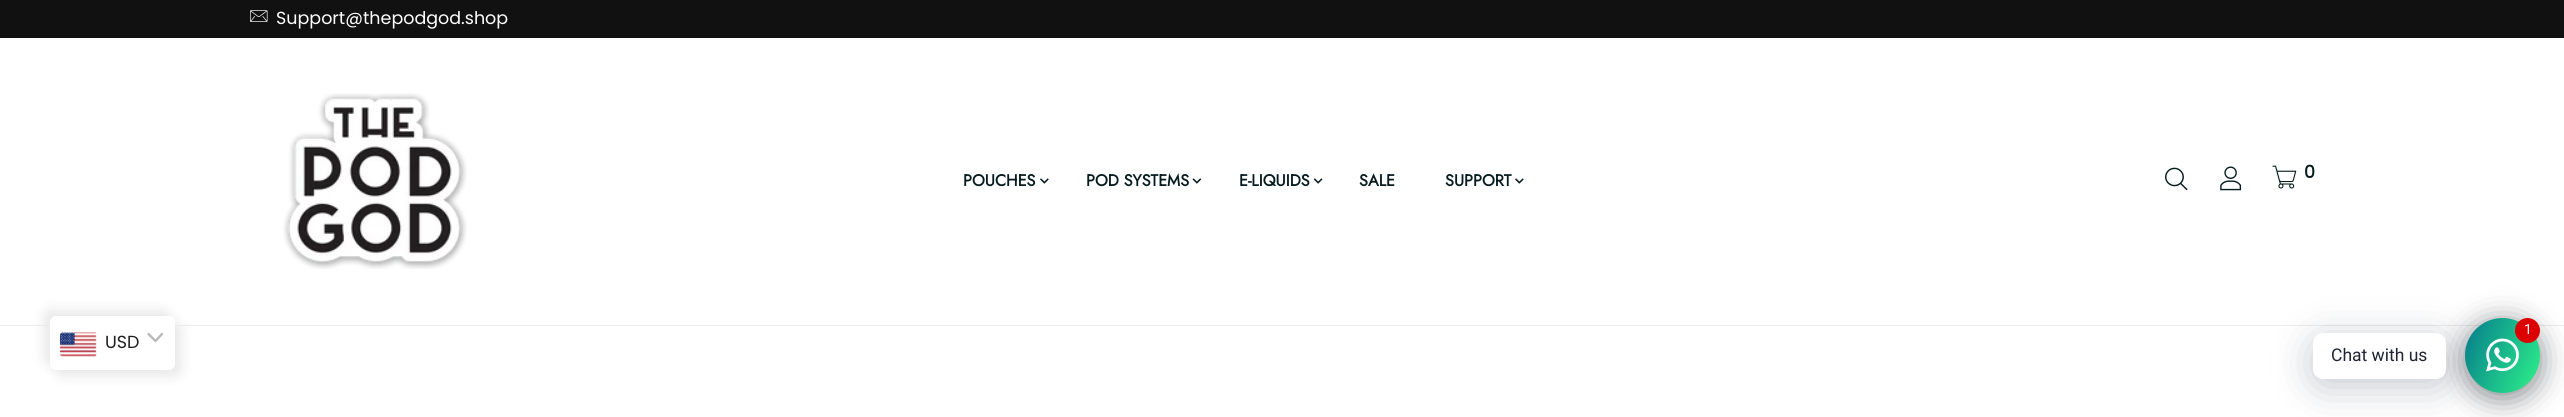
#include <cairo.h>
#include <math.h>
#include <stddef.h>


static void round_rect(cairo_t *cr, double x, double y, double w, double h, double r) {
    cairo_new_sub_path(cr);
    cairo_arc(cr, x + w - r, y + h - r, r, 0, M_PI / 2);
    cairo_arc(cr, x + r, y + h - r, r, M_PI / 2, M_PI);
    cairo_arc(cr, x + r, y + r, r, M_PI, 1.5 * M_PI);
    cairo_arc(cr, x + w - r, y + r, r, 1.5 * M_PI, 2 * M_PI);
    cairo_close_path(cr);
}

static void shadow(cairo_t *cr, double x, double y, double w, double h, double r, double blur, double alpha) {
    cairo_push_group_with_content(cr, CAIRO_CONTENT_ALPHA);
    cairo_set_operator(cr, CAIRO_OPERATOR_SOURCE);
    for (int i = 15; i >= -15 && fmin(w, h) + blur * i / 3 > 0; i -= 2) {
        double e = blur * i / 6;
        cairo_set_source_rgba(cr, 0, 0, 0, alpha * erfc((i - 1) / 8.5) / 2);
        round_rect(cr, x - e, y - e, w + 2 * e, h + 2 * e, fmax(0, fmin(r + e + blur * .6, fmin(w, h) / 2 + e)));
        cairo_fill(cr);
    }
    cairo_pattern_t *soft = cairo_pop_group(cr);
    cairo_mask(cr, soft);
    cairo_pattern_destroy(soft);
}

static void picture(cairo_t *cr, const char *path, double x, double y, double w, double h) {
    cairo_surface_t *image = cairo_image_surface_create_from_png(path);
    cairo_save(cr);
    cairo_set_source_surface(cr, image, x, y);
    cairo_rectangle(cr, x, y, w, h);
    cairo_fill(cr);
    cairo_restore(cr);
    cairo_surface_destroy(image);
}

int main(void) {
    cairo_surface_t *surface = cairo_image_surface_create(CAIRO_FORMAT_RGB24, 2564, 417);
    cairo_t *cr = cairo_create(surface);
    cairo_font_options_t *options = cairo_font_options_create();
    cairo_font_options_set_hint_metrics(options, CAIRO_HINT_METRICS_OFF);
    cairo_font_options_set_hint_style(options, CAIRO_HINT_STYLE_NONE);
    cairo_set_font_options(cr, options);
    cairo_set_miter_limit(cr, 4);
    cairo_pattern_t *gradient;
    cairo_set_source_rgb(cr, 1, 1, 1);
    cairo_paint(cr);
    cairo_set_source_rgb(cr, 0.922, 0.922, 0.922);
    cairo_rectangle(cr, 0, 325, 2564, 1);
    cairo_fill(cr);
    cairo_set_source_rgb(cr, 0.067, 0.067, 0.067);
    cairo_rectangle(cr, 0, 0, 2564, 38);
    cairo_fill(cr);
    picture(cr, "img1.png", 250, 10, 18, 12);
    cairo_select_font_face(cr, "Poppins", CAIRO_FONT_SLANT_NORMAL, CAIRO_FONT_WEIGHT_NORMAL);
    cairo_set_font_size(cr, 17.5);
    cairo_set_source_rgb(cr, 1, 1, 1);
    cairo_move_to(cr, 276, 24);
    cairo_show_text(cr, "Support@thepodgod.shop");
    picture(cr, "img2.png", 283, 93, 184, 176);
    picture(cr, "img3.png", 2165, 167, 23, 24);
    picture(cr, "img4.png", 2220, 166, 22, 25);
    picture(cr, "img5.png", 2272, 165, 25, 24);
    cairo_select_font_face(cr, "Poppins", CAIRO_FONT_SLANT_NORMAL, CAIRO_FONT_WEIGHT_BOLD);
    cairo_set_source_rgb(cr, 0.027, 0.11, 0.122);
    cairo_move_to(cr, 2304, 178);
    cairo_show_text(cr, "0");
    cairo_select_font_face(cr, "Jost", CAIRO_FONT_SLANT_NORMAL, CAIRO_FONT_WEIGHT_BOLD);
    cairo_set_font_size(cr, 16.25);
    cairo_move_to(cr, 963, 186);
    cairo_show_text(cr, "POUCHES");
    picture(cr, "img6.png", 1040, 178, 9, 6);
    cairo_move_to(cr, 1086, 186);
    cairo_show_text(cr, "POD SYSTEMS");
    picture(cr, "img7.png", 1192, 178, 10, 6);
    cairo_move_to(cr, 1239, 186);
    cairo_show_text(cr, "E-LIQUIDS");
    picture(cr, "img8.png", 1313, 178, 10, 6);
    cairo_move_to(cr, 1359, 186);
    cairo_show_text(cr, "SALE");
    cairo_move_to(cr, 1445, 186);
    cairo_show_text(cr, "SUPPORT");
    picture(cr, "img6.png", 1515, 178, 9, 6);
    cairo_set_source_rgb(cr, 0.91, 0.91, 0.91);
    shadow(cr, 44, 310, 125, 54, 6, 6, 1);
    shadow(cr, 56, 323, 125, 53, 6, 6, 1);
    cairo_set_source_rgb(cr, 1, 1, 1);
    round_rect(cr, 50, 316, 125, 54, 6);
    cairo_fill(cr);
    picture(cr, "img9.png", 60, 332, 37, 25);
    cairo_select_font_face(cr, "Poppins", CAIRO_FONT_SLANT_NORMAL, CAIRO_FONT_WEIGHT_NORMAL);
    cairo_set_font_size(cr, 17.5);
    cairo_set_source_rgb(cr, 0.118, 0.118, 0.118);
    cairo_move_to(cr, 105, 348);
    cairo_show_text(cr, "USD");
    cairo_new_path(cr);
    cairo_move_to(cr, 148.5, 334);
    cairo_line_to(cr, 155.5, 341);
    cairo_line_to(cr, 162, 334);
    cairo_set_source_rgb(cr, 0.718, 0.718, 0.718);
    cairo_set_line_width(cr, 2.3);
    cairo_set_line_cap(cr, CAIRO_LINE_CAP_ROUND);
    cairo_set_line_join(cr, CAIRO_LINE_JOIN_ROUND);
    cairo_stroke(cr);
    cairo_set_source_rgb(cr, 0.008, 0.024, 0.063);
    shadow(cr, 2465, 323, 75, 75, 37.5, 15, 0.5);
    gradient = cairo_pattern_create_linear(2457, 334, 2548, 376);
    cairo_pattern_add_color_stop_rgba(gradient, 0, 0.016, 0.486, 0.553, 1);
    cairo_pattern_add_color_stop_rgba(gradient, 1, 0.184, 0.949, 0.537, 1);
    cairo_set_source(cr, gradient);
    cairo_pattern_destroy(gradient);
    cairo_arc(cr, 2502.5, 355.5, 37.5, 0, 2 * M_PI);
    cairo_fill(cr);
    cairo_set_source_rgb(cr, 0, 0.071, 0.18);
    shadow(cr, 2313, 340, 133, 46, 10, 20, 0.24);
    picture(cr, "img10.png", 2486, 338, 33, 34);
    cairo_set_source_rgb(cr, 0.867, 0, 0);
    cairo_arc(cr, 2527.5, 330.5, 12.5, 0, 2 * M_PI);
    cairo_fill(cr);
    cairo_select_font_face(cr, "Roboto", CAIRO_FONT_SLANT_NORMAL, CAIRO_FONT_WEIGHT_NORMAL);
    cairo_set_font_size(cr, 14);
    cairo_set_source_rgb(cr, 1, 1, 1);
    cairo_move_to(cr, 2524, 334);
    cairo_show_text(cr, "1");
    round_rect(cr, 2313, 333, 133, 46, 10);
    cairo_fill(cr);
    cairo_set_font_size(cr, 17.5);
    cairo_set_source_rgb(cr, 0.118, 0.141, 0.2);
    cairo_move_to(cr, 2331, 361);
    cairo_show_text(cr, "Chat with us");
    cairo_surface_write_to_png(surface, "page.png");
    cairo_font_options_destroy(options);
    cairo_destroy(cr);
    cairo_surface_destroy(surface);
    return 0;
}
